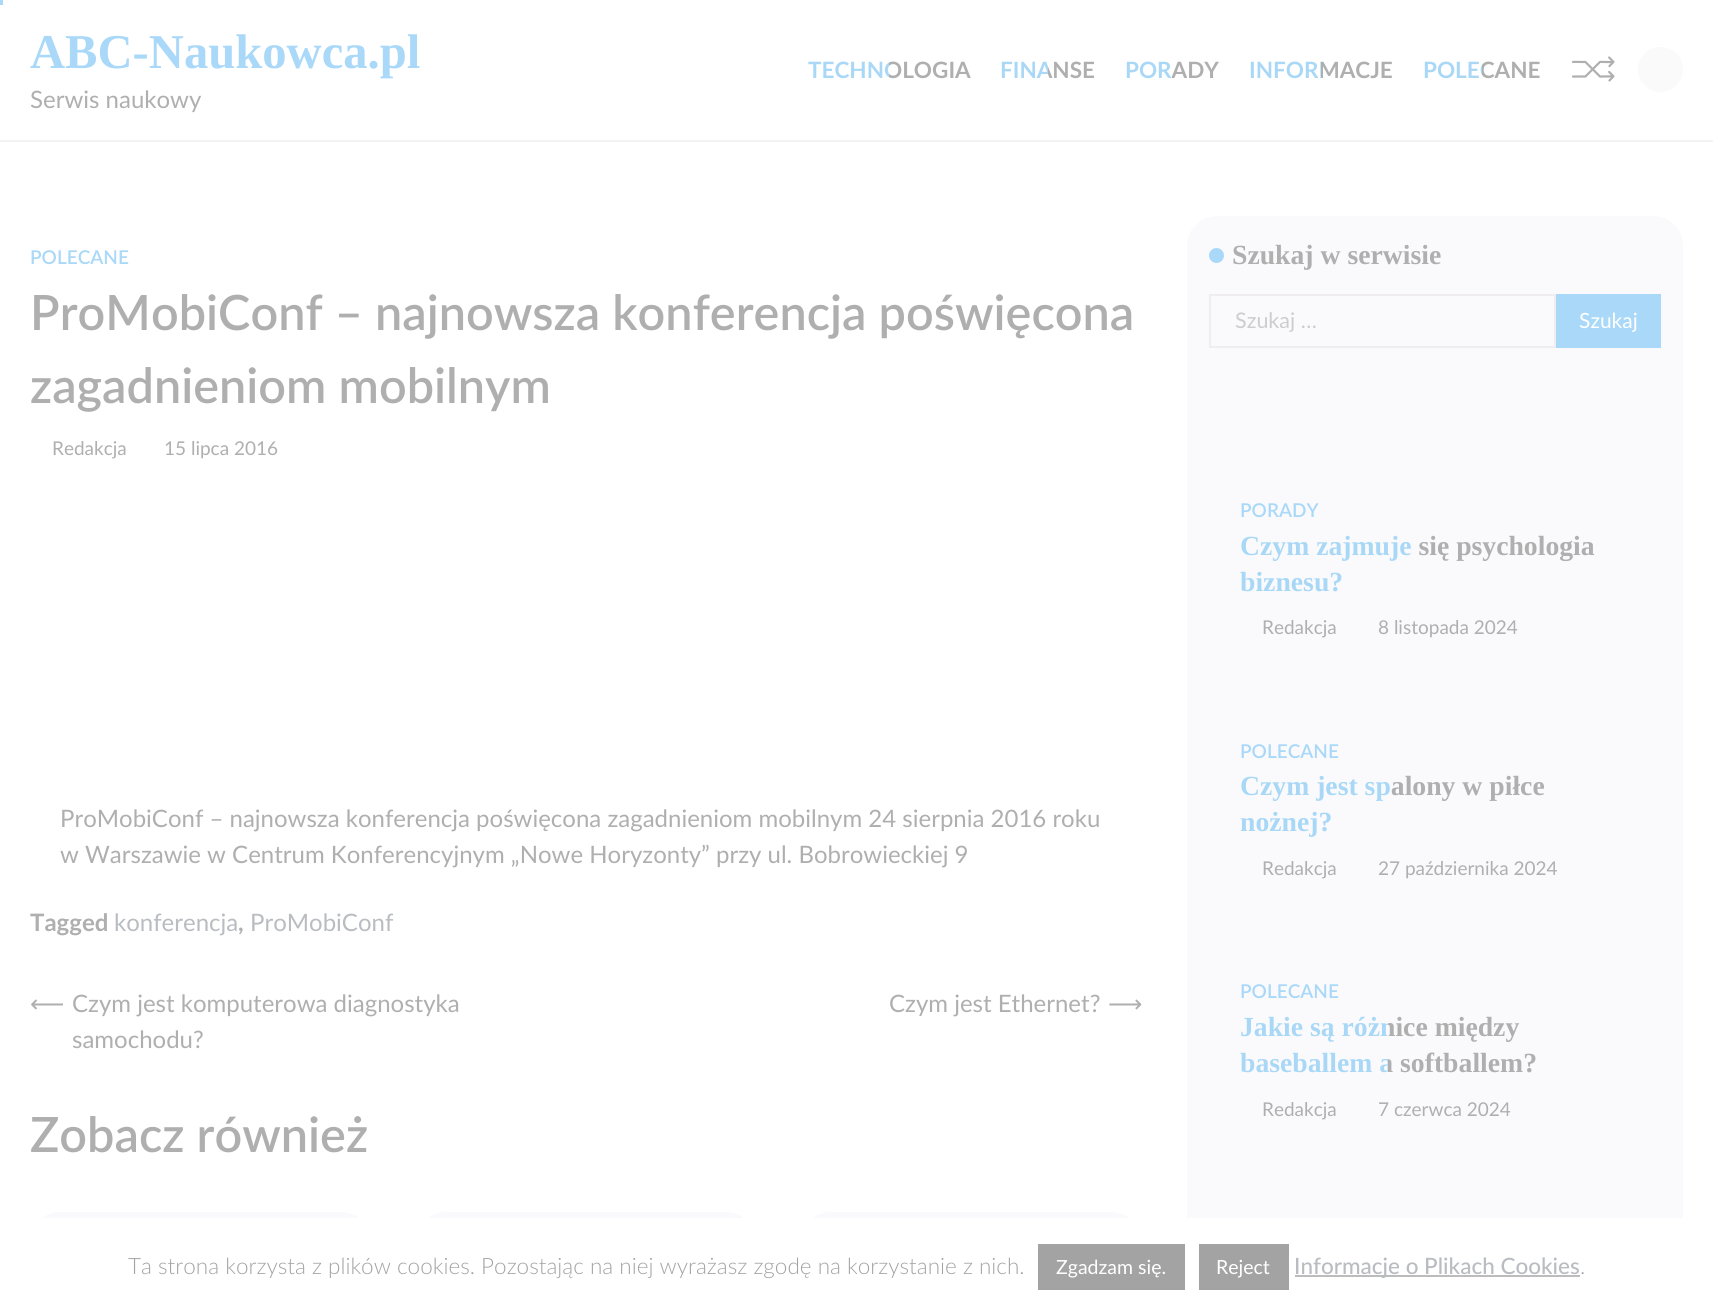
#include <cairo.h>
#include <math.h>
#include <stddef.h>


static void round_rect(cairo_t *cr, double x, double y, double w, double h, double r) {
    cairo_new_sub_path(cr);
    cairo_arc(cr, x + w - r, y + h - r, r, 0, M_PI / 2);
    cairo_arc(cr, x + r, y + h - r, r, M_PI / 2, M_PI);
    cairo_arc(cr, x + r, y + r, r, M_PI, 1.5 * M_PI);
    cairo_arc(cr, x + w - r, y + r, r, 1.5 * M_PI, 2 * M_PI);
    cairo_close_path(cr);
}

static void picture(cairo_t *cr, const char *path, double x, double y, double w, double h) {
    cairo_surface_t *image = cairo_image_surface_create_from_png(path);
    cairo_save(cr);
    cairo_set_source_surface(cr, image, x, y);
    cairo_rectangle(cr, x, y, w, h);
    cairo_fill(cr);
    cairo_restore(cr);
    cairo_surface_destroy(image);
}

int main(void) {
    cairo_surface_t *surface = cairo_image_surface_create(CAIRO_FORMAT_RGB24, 1713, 1307);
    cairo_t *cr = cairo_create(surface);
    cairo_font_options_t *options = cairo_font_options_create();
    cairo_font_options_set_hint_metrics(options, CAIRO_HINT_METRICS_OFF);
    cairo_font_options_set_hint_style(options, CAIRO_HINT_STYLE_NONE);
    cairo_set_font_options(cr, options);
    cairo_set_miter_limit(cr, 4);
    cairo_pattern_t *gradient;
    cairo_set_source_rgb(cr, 1, 1, 1);
    cairo_paint(cr);
    cairo_set_source_rgb(cr, 0.663, 0.847, 0.969);
    cairo_rectangle(cr, 0, 0, 3, 5);
    cairo_fill(cr);
    cairo_set_source_rgb(cr, 0.953, 0.953, 0.953);
    cairo_rectangle(cr, 0, 140, 1713, 2);
    cairo_fill(cr);
    cairo_select_font_face(cr, "Liberation Serif", CAIRO_FONT_SLANT_NORMAL, CAIRO_FONT_WEIGHT_BOLD);
    cairo_set_font_size(cr, 48.6);
    cairo_set_source_rgb(cr, 0.663, 0.847, 0.969);
    cairo_move_to(cr, 30, 68);
    cairo_show_text(cr, "ABC-Naukowca.pl");
    cairo_select_font_face(cr, "Lato", CAIRO_FONT_SLANT_NORMAL, CAIRO_FONT_WEIGHT_NORMAL);
    cairo_set_font_size(cr, 24);
    cairo_set_source_rgb(cr, 0.686, 0.686, 0.69);
    cairo_move_to(cr, 30, 108);
    cairo_show_text(cr, "Serwis naukowy");
    cairo_select_font_face(cr, "Lato", CAIRO_FONT_SLANT_NORMAL, CAIRO_FONT_WEIGHT_BOLD);
    cairo_set_font_size(cr, 22.5);
    gradient = cairo_pattern_create_linear(808, 69, 970, 69);
    cairo_pattern_add_color_stop_rgba(gradient, 0, 0.663, 0.847, 0.969, 1);
    cairo_pattern_add_color_stop_rgba(gradient, 0.5, 0.663, 0.847, 0.969, 1);
    cairo_pattern_add_color_stop_rgba(gradient, 0.5, 0.686, 0.686, 0.69, 1);
    cairo_set_source(cr, gradient);
    cairo_pattern_destroy(gradient);
    cairo_move_to(cr, 808, 78);
    cairo_show_text(cr, "TECHNOLOGIA");
    gradient = cairo_pattern_create_linear(1000, 69, 1095, 69);
    cairo_pattern_add_color_stop_rgba(gradient, 0, 0.663, 0.847, 0.969, 1);
    cairo_pattern_add_color_stop_rgba(gradient, 0.5, 0.663, 0.847, 0.969, 1);
    cairo_pattern_add_color_stop_rgba(gradient, 0.5, 0.686, 0.686, 0.69, 1);
    cairo_set_source(cr, gradient);
    cairo_pattern_destroy(gradient);
    cairo_move_to(cr, 1000, 78);
    cairo_show_text(cr, "FINANSE");
    gradient = cairo_pattern_create_linear(1125, 69, 1219, 69);
    cairo_pattern_add_color_stop_rgba(gradient, 0, 0.663, 0.847, 0.969, 1);
    cairo_pattern_add_color_stop_rgba(gradient, 0.5, 0.663, 0.847, 0.969, 1);
    cairo_pattern_add_color_stop_rgba(gradient, 0.5, 0.686, 0.686, 0.69, 1);
    cairo_set_source(cr, gradient);
    cairo_pattern_destroy(gradient);
    cairo_move_to(cr, 1125, 78);
    cairo_show_text(cr, "PORADY");
    gradient = cairo_pattern_create_linear(1249, 69, 1393, 69);
    cairo_pattern_add_color_stop_rgba(gradient, 0, 0.663, 0.847, 0.969, 1);
    cairo_pattern_add_color_stop_rgba(gradient, 0.5, 0.663, 0.847, 0.969, 1);
    cairo_pattern_add_color_stop_rgba(gradient, 0.5, 0.686, 0.686, 0.69, 1);
    cairo_set_source(cr, gradient);
    cairo_pattern_destroy(gradient);
    cairo_move_to(cr, 1249, 78);
    cairo_show_text(cr, "INFORMACJE");
    gradient = cairo_pattern_create_linear(1423, 69, 1541, 69);
    cairo_pattern_add_color_stop_rgba(gradient, 0, 0.663, 0.847, 0.969, 1);
    cairo_pattern_add_color_stop_rgba(gradient, 0.5, 0.663, 0.847, 0.969, 1);
    cairo_pattern_add_color_stop_rgba(gradient, 0.5, 0.686, 0.686, 0.69, 1);
    cairo_set_source(cr, gradient);
    cairo_pattern_destroy(gradient);
    cairo_move_to(cr, 1423, 78);
    cairo_show_text(cr, "POLECANE");
    picture(cr, "img1.png", 1571, 56, 44, 26);
    cairo_set_source_rgb(cr, 0.98, 0.98, 0.98);
    cairo_arc(cr, 1660.5, 69.5, 22.5, 0, 2 * M_PI);
    cairo_fill(cr);
    cairo_select_font_face(cr, "Lato SemiBold", CAIRO_FONT_SLANT_NORMAL, CAIRO_FONT_WEIGHT_NORMAL);
    cairo_set_font_size(cr, 19);
    cairo_set_source_rgb(cr, 0.663, 0.847, 0.969);
    cairo_move_to(cr, 30, 264);
    cairo_show_text(cr, "POLECANE");
    cairo_set_font_size(cr, 48.6);
    cairo_set_source_rgb(cr, 0.686, 0.686, 0.69);
    cairo_move_to(cr, 30, 330);
    cairo_show_text(cr, "ProMobiConf – najnowsza konferencja poświęcona");
    cairo_move_to(cr, 30, 403);
    cairo_show_text(cr, "zagadnieniom mobilnym");
    cairo_select_font_face(cr, "Lato", CAIRO_FONT_SLANT_NORMAL, CAIRO_FONT_WEIGHT_NORMAL);
    cairo_set_font_size(cr, 19);
    cairo_move_to(cr, 52, 455);
    cairo_show_text(cr, "Redakcja");
    cairo_move_to(cr, 164, 455);
    cairo_show_text(cr, "15 lipca 2016");
    cairo_set_font_size(cr, 24);
    cairo_move_to(cr, 60, 827);
    cairo_show_text(cr, "ProMobiConf – najnowsza konferencja poświęcona zagadnieniom mobilnym 24 sierpnia 2016 roku");
    cairo_move_to(cr, 60, 863);
    cairo_show_text(cr, "w Warszawie w Centrum Konferencyjnym „Nowe Horyzonty” przy ul. Bobrowieckiej 9");
    cairo_select_font_face(cr, "Lato", CAIRO_FONT_SLANT_NORMAL, CAIRO_FONT_WEIGHT_BOLD);
    cairo_move_to(cr, 30, 931);
    cairo_show_text(cr, "Tagged");
    cairo_select_font_face(cr, "Lato", CAIRO_FONT_SLANT_NORMAL, CAIRO_FONT_WEIGHT_NORMAL);
    cairo_set_source_rgb(cr, 0.725, 0.737, 0.757);
    cairo_move_to(cr, 114, 931);
    cairo_show_text(cr, "konferencja");
    cairo_select_font_face(cr, "Lato", CAIRO_FONT_SLANT_NORMAL, CAIRO_FONT_WEIGHT_BOLD);
    cairo_set_source_rgb(cr, 0.686, 0.686, 0.69);
    cairo_move_to(cr, 238, 931);
    cairo_show_text(cr, ",");
    cairo_select_font_face(cr, "Lato", CAIRO_FONT_SLANT_NORMAL, CAIRO_FONT_WEIGHT_NORMAL);
    cairo_set_source_rgb(cr, 0.725, 0.737, 0.757);
    cairo_move_to(cr, 250, 931);
    cairo_show_text(cr, "ProMobiConf");
    cairo_select_font_face(cr, "DejaVu Sans", CAIRO_FONT_SLANT_NORMAL, CAIRO_FONT_WEIGHT_NORMAL);
    cairo_set_source_rgb(cr, 0.686, 0.686, 0.69);
    cairo_move_to(cr, 30, 1012);
    cairo_show_text(cr, "⟵");
    cairo_select_font_face(cr, "Lato", CAIRO_FONT_SLANT_NORMAL, CAIRO_FONT_WEIGHT_NORMAL);
    cairo_move_to(cr, 72, 1012);
    cairo_show_text(cr, "Czym jest komputerowa diagnostyka");
    cairo_move_to(cr, 72, 1048);
    cairo_show_text(cr, "samochodu?");
    cairo_move_to(cr, 889, 1012);
    cairo_show_text(cr, "Czym jest Ethernet?");
    cairo_select_font_face(cr, "DejaVu Sans", CAIRO_FONT_SLANT_NORMAL, CAIRO_FONT_WEIGHT_NORMAL);
    cairo_move_to(cr, 1108, 1012);
    cairo_show_text(cr, "⟶");
    cairo_select_font_face(cr, "Lato SemiBold", CAIRO_FONT_SLANT_NORMAL, CAIRO_FONT_WEIGHT_NORMAL);
    cairo_set_font_size(cr, 48.6);
    cairo_move_to(cr, 30, 1152);
    cairo_show_text(cr, "Zobacz również");
    cairo_set_source_rgb(cr, 0.98, 0.98, 0.988);
    round_rect(cr, 30, 1212, 341, 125, 30);
    cairo_fill(cr);
    round_rect(cr, 416, 1212, 340, 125, 30);
    cairo_fill(cr);
    round_rect(cr, 801, 1212, 341, 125, 30);
    cairo_fill(cr);
    round_rect(cr, 1187, 216, 496, 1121, 30);
    cairo_fill(cr);
    cairo_set_source_rgb(cr, 0.663, 0.847, 0.969);
    cairo_arc(cr, 1216.5, 255.5, 7.5, 0, 2 * M_PI);
    cairo_fill(cr);
    cairo_select_font_face(cr, "Liberation Serif", CAIRO_FONT_SLANT_NORMAL, CAIRO_FONT_WEIGHT_BOLD);
    cairo_set_font_size(cr, 27.7);
    cairo_set_source_rgb(cr, 0.686, 0.686, 0.69);
    cairo_move_to(cr, 1232, 264);
    cairo_show_text(cr, "Szukaj w serwisie");
    cairo_rectangle(cr, 1210, 295, 345, 52);
    cairo_set_source_rgb(cr, 0.937, 0.929, 0.937);
    cairo_stroke(cr);
    cairo_select_font_face(cr, "Lato", CAIRO_FONT_SLANT_NORMAL, CAIRO_FONT_WEIGHT_NORMAL);
    cairo_set_font_size(cr, 21.5);
    cairo_set_source_rgb(cr, 0.804, 0.804, 0.804);
    cairo_move_to(cr, 1235, 328);
    cairo_show_text(cr, "Szukaj …");
    cairo_set_source_rgb(cr, 0.663, 0.847, 0.969);
    cairo_rectangle(cr, 1556, 294, 105, 54);
    cairo_fill(cr);
    cairo_set_font_size(cr, 21);
    cairo_set_source_rgb(cr, 1, 1, 1);
    cairo_move_to(cr, 1579, 328);
    cairo_show_text(cr, "Szukaj");
    cairo_select_font_face(cr, "Lato SemiBold", CAIRO_FONT_SLANT_NORMAL, CAIRO_FONT_WEIGHT_NORMAL);
    cairo_set_font_size(cr, 19);
    cairo_set_source_rgb(cr, 0.663, 0.847, 0.969);
    cairo_move_to(cr, 1240, 517);
    cairo_show_text(cr, "PORADY");
    cairo_select_font_face(cr, "Liberation Serif", CAIRO_FONT_SLANT_NORMAL, CAIRO_FONT_WEIGHT_BOLD);
    cairo_set_font_size(cr, 27.7);
    gradient = cairo_pattern_create_linear(1240, 564, 1594, 564);
    cairo_pattern_add_color_stop_rgba(gradient, 0, 0.663, 0.847, 0.969, 1);
    cairo_pattern_add_color_stop_rgba(gradient, 0.5, 0.663, 0.847, 0.969, 1);
    cairo_pattern_add_color_stop_rgba(gradient, 0.5, 0.686, 0.686, 0.69, 1);
    cairo_set_source(cr, gradient);
    cairo_pattern_destroy(gradient);
    cairo_move_to(cr, 1240, 555);
    cairo_show_text(cr, "Czym zajmuje się psychologia");
    cairo_move_to(cr, 1240, 591);
    cairo_show_text(cr, "biznesu?");
    cairo_select_font_face(cr, "Lato", CAIRO_FONT_SLANT_NORMAL, CAIRO_FONT_WEIGHT_NORMAL);
    cairo_set_font_size(cr, 19);
    cairo_set_source_rgb(cr, 0.686, 0.686, 0.69);
    cairo_move_to(cr, 1262, 634);
    cairo_show_text(cr, "Redakcja");
    cairo_move_to(cr, 1378, 634);
    cairo_show_text(cr, "8 listopada 2024");
    cairo_select_font_face(cr, "Lato SemiBold", CAIRO_FONT_SLANT_NORMAL, CAIRO_FONT_WEIGHT_NORMAL);
    cairo_set_source_rgb(cr, 0.663, 0.847, 0.969);
    cairo_move_to(cr, 1240, 758);
    cairo_show_text(cr, "POLECANE");
    cairo_select_font_face(cr, "Liberation Serif", CAIRO_FONT_SLANT_NORMAL, CAIRO_FONT_WEIGHT_BOLD);
    cairo_set_font_size(cr, 27.7);
    gradient = cairo_pattern_create_linear(1240, 804, 1544, 804);
    cairo_pattern_add_color_stop_rgba(gradient, 0, 0.663, 0.847, 0.969, 1);
    cairo_pattern_add_color_stop_rgba(gradient, 0.5, 0.663, 0.847, 0.969, 1);
    cairo_pattern_add_color_stop_rgba(gradient, 0.5, 0.686, 0.686, 0.69, 1);
    cairo_set_source(cr, gradient);
    cairo_pattern_destroy(gradient);
    cairo_move_to(cr, 1240, 795);
    cairo_show_text(cr, "Czym jest spalony w piłce");
    cairo_move_to(cr, 1240, 831);
    cairo_show_text(cr, "nożnej?");
    cairo_select_font_face(cr, "Lato", CAIRO_FONT_SLANT_NORMAL, CAIRO_FONT_WEIGHT_NORMAL);
    cairo_set_font_size(cr, 19);
    cairo_set_source_rgb(cr, 0.686, 0.686, 0.69);
    cairo_move_to(cr, 1262, 875);
    cairo_show_text(cr, "Redakcja");
    cairo_move_to(cr, 1378, 875);
    cairo_show_text(cr, "27 października 2024");
    cairo_select_font_face(cr, "Lato SemiBold", CAIRO_FONT_SLANT_NORMAL, CAIRO_FONT_WEIGHT_NORMAL);
    cairo_set_source_rgb(cr, 0.663, 0.847, 0.969);
    cairo_move_to(cr, 1240, 998);
    cairo_show_text(cr, "POLECANE");
    cairo_select_font_face(cr, "Liberation Serif", CAIRO_FONT_SLANT_NORMAL, CAIRO_FONT_WEIGHT_BOLD);
    cairo_set_font_size(cr, 27.7);
    gradient = cairo_pattern_create_linear(1240, 1045, 1536, 1045);
    cairo_pattern_add_color_stop_rgba(gradient, 0, 0.663, 0.847, 0.969, 1);
    cairo_pattern_add_color_stop_rgba(gradient, 0.5, 0.663, 0.847, 0.969, 1);
    cairo_pattern_add_color_stop_rgba(gradient, 0.5, 0.686, 0.686, 0.69, 1);
    cairo_set_source(cr, gradient);
    cairo_pattern_destroy(gradient);
    cairo_move_to(cr, 1240, 1036);
    cairo_show_text(cr, "Jakie są różnice między");
    cairo_move_to(cr, 1240, 1072);
    cairo_show_text(cr, "baseballem a softballem?");
    cairo_select_font_face(cr, "Lato", CAIRO_FONT_SLANT_NORMAL, CAIRO_FONT_WEIGHT_NORMAL);
    cairo_set_font_size(cr, 19);
    cairo_set_source_rgb(cr, 0.686, 0.686, 0.69);
    cairo_move_to(cr, 1262, 1116);
    cairo_show_text(cr, "Redakcja");
    cairo_move_to(cr, 1378, 1116);
    cairo_show_text(cr, "7 czerwca 2024");
    cairo_set_source_rgb(cr, 1, 1, 1);
    cairo_rectangle(cr, 30, 1218, 1653, 89);
    cairo_fill(cr);
    cairo_select_font_face(cr, "Lato Light", CAIRO_FONT_SLANT_NORMAL, CAIRO_FONT_WEIGHT_NORMAL);
    cairo_set_font_size(cr, 22.5);
    cairo_set_source_rgb(cr, 0.639, 0.639, 0.639);
    cairo_move_to(cr, 128, 1274);
    cairo_show_text(cr, "Ta strona korzysta z plików cookies. Pozostając na niej wyrażasz zgodę na korzystanie z nich.");
    cairo_rectangle(cr, 1038, 1244, 147, 46);
    cairo_fill(cr);
    cairo_select_font_face(cr, "Lato", CAIRO_FONT_SLANT_NORMAL, CAIRO_FONT_WEIGHT_NORMAL);
    cairo_set_font_size(cr, 19.5);
    cairo_set_source_rgb(cr, 1, 1, 1);
    cairo_move_to(cr, 1056, 1274);
    cairo_show_text(cr, "Zgadzam się.");
    cairo_set_source_rgb(cr, 0.639, 0.639, 0.639);
    cairo_rectangle(cr, 1199, 1244, 90, 46);
    cairo_fill(cr);
    cairo_set_source_rgb(cr, 1, 1, 1);
    cairo_move_to(cr, 1216, 1274);
    cairo_show_text(cr, "Reject");
    cairo_set_source_rgb(cr, 0.737, 0.737, 0.737);
    cairo_rectangle(cr, 1295, 1275, 285, 2);
    cairo_fill(cr);
    cairo_select_font_face(cr, "Lato Medium", CAIRO_FONT_SLANT_NORMAL, CAIRO_FONT_WEIGHT_NORMAL);
    cairo_set_font_size(cr, 22.5);
    cairo_set_source_rgb(cr, 0.725, 0.737, 0.757);
    cairo_move_to(cr, 1294, 1274);
    cairo_show_text(cr, "Informacje o Plikach Cookies");
    cairo_select_font_face(cr, "Lato Light", CAIRO_FONT_SLANT_NORMAL, CAIRO_FONT_WEIGHT_NORMAL);
    cairo_set_source_rgb(cr, 0.639, 0.639, 0.639);
    cairo_move_to(cr, 1580, 1274);
    cairo_show_text(cr, ".");
    cairo_surface_write_to_png(surface, "page.png");
    cairo_font_options_destroy(options);
    cairo_destroy(cr);
    cairo_surface_destroy(surface);
    return 0;
}
